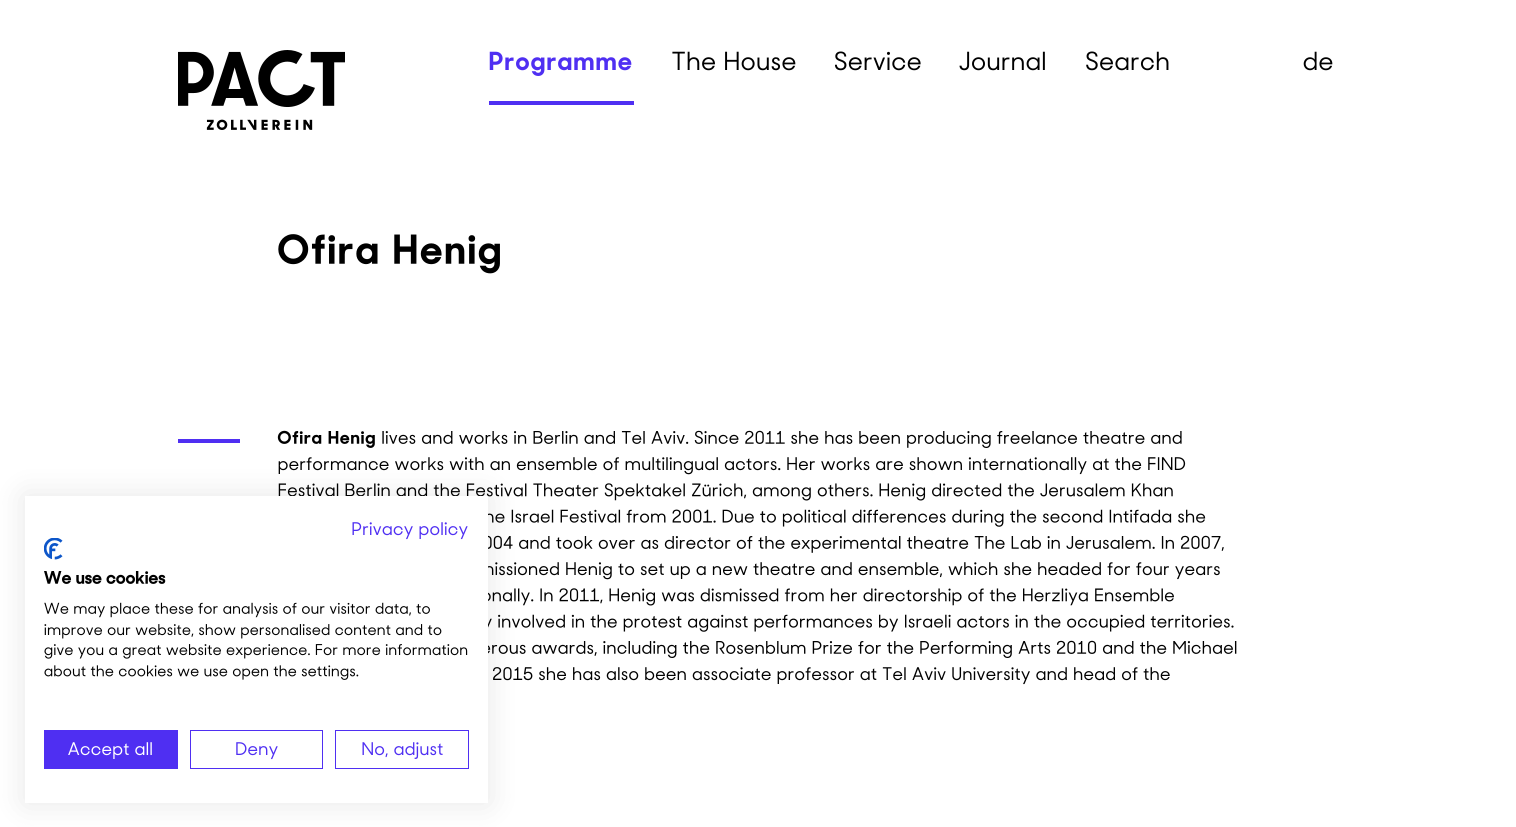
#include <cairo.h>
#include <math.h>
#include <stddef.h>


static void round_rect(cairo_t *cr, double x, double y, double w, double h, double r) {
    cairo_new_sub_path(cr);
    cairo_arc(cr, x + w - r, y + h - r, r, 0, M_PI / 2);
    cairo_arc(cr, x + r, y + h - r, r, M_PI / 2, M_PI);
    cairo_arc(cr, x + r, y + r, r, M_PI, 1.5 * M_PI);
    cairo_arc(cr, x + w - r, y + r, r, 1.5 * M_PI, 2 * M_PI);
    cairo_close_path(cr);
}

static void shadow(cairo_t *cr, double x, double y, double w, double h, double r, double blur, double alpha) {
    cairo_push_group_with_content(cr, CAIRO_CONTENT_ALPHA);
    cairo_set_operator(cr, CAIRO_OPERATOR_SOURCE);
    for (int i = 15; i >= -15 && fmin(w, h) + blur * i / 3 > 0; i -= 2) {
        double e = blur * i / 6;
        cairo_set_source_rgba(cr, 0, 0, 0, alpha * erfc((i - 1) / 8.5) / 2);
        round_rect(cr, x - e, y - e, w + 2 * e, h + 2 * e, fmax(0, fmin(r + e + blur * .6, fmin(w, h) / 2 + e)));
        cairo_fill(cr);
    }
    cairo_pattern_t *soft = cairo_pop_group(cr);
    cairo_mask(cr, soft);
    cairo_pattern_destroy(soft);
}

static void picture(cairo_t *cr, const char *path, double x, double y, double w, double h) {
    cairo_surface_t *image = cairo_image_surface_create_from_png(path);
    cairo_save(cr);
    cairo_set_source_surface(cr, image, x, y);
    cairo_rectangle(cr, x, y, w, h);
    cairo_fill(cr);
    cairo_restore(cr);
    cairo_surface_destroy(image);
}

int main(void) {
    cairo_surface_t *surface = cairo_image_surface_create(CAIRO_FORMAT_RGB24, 1516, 827);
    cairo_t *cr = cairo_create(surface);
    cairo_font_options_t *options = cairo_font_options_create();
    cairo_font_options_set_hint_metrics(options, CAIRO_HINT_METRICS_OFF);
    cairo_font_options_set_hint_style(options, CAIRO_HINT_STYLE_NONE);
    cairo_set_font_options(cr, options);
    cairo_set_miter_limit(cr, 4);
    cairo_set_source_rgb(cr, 1, 1, 1);
    cairo_paint(cr);
    picture(cr, "img1.png", 178, 50, 167, 80);
    cairo_set_source_rgb(cr, 0.31, 0.184, 0.949);
    cairo_rectangle(cr, 489, 101, 145, 4);
    cairo_fill(cr);
    picture(cr, "img2.png", 489, 51, 143, 25);
    picture(cr, "img3.png", 672, 51, 124, 20);
    picture(cr, "img4.png", 835, 51, 86, 20);
    picture(cr, "img5.png", 959, 51, 86, 20);
    picture(cr, "img6.png", 1086, 51, 83, 20);
    picture(cr, "img7.png", 1303, 51, 30, 20);
    picture(cr, "img8.png", 278, 234, 222, 40);
    cairo_rectangle(cr, 178, 439, 62, 4);
    cairo_fill(cr);
    picture(cr, "img9.png", 277, 430, 98, 18);
    picture(cr, "img10.png", 382, 430, 800, 18);
    picture(cr, "img11.png", 278, 457, 908, 18);
    picture(cr, "img12.png", 278, 483, 895, 18);
    picture(cr, "img13.png", 488, 509, 718, 18);
    picture(cr, "img14.png", 488, 535, 736, 18);
    picture(cr, "img15.png", 488, 562, 732, 18);
    picture(cr, "img16.png", 488, 588, 686, 18);
    picture(cr, "img17.png", 488, 614, 746, 18);
    picture(cr, "img18.png", 488, 640, 749, 18);
    picture(cr, "img19.png", 493, 667, 677, 18);
    cairo_set_source_rgb(cr, 0, 0, 0);
    shadow(cr, 25, 496, 463, 307, 0, 15, 0.1);
    cairo_set_source_rgb(cr, 1, 1, 1);
    cairo_rectangle(cr, 25, 496, 463, 307);
    cairo_fill(cr);
    picture(cr, "img20.png", 352, 522, 116, 18);
    picture(cr, "img21.png", 44, 538, 19, 22);
    picture(cr, "img22.png", 44, 571, 122, 13);
    picture(cr, "img23.png", 44, 602, 386, 16);
    picture(cr, "img24.png", 44, 624, 398, 15);
    picture(cr, "img25.png", 44, 644, 424, 15);
    picture(cr, "img26.png", 44, 665, 315, 15);
    cairo_set_source_rgb(cr, 0.31, 0.184, 0.949);
    cairo_rectangle(cr, 44, 730, 134, 39);
    cairo_fill(cr);
    picture(cr, "img27.png", 68, 742, 84, 17);
    cairo_rectangle(cr, 190.5, 730.5, 132, 38);
    cairo_set_line_width(cr, 1);
    cairo_stroke(cr);
    picture(cr, "img28.png", 236, 742, 42, 18);
    cairo_rectangle(cr, 335.5, 730.5, 133, 38);
    cairo_stroke(cr);
    picture(cr, "img29.png", 362, 742, 81, 17);
    cairo_surface_write_to_png(surface, "page.png");
    cairo_font_options_destroy(options);
    cairo_destroy(cr);
    cairo_surface_destroy(surface);
    return 0;
}
